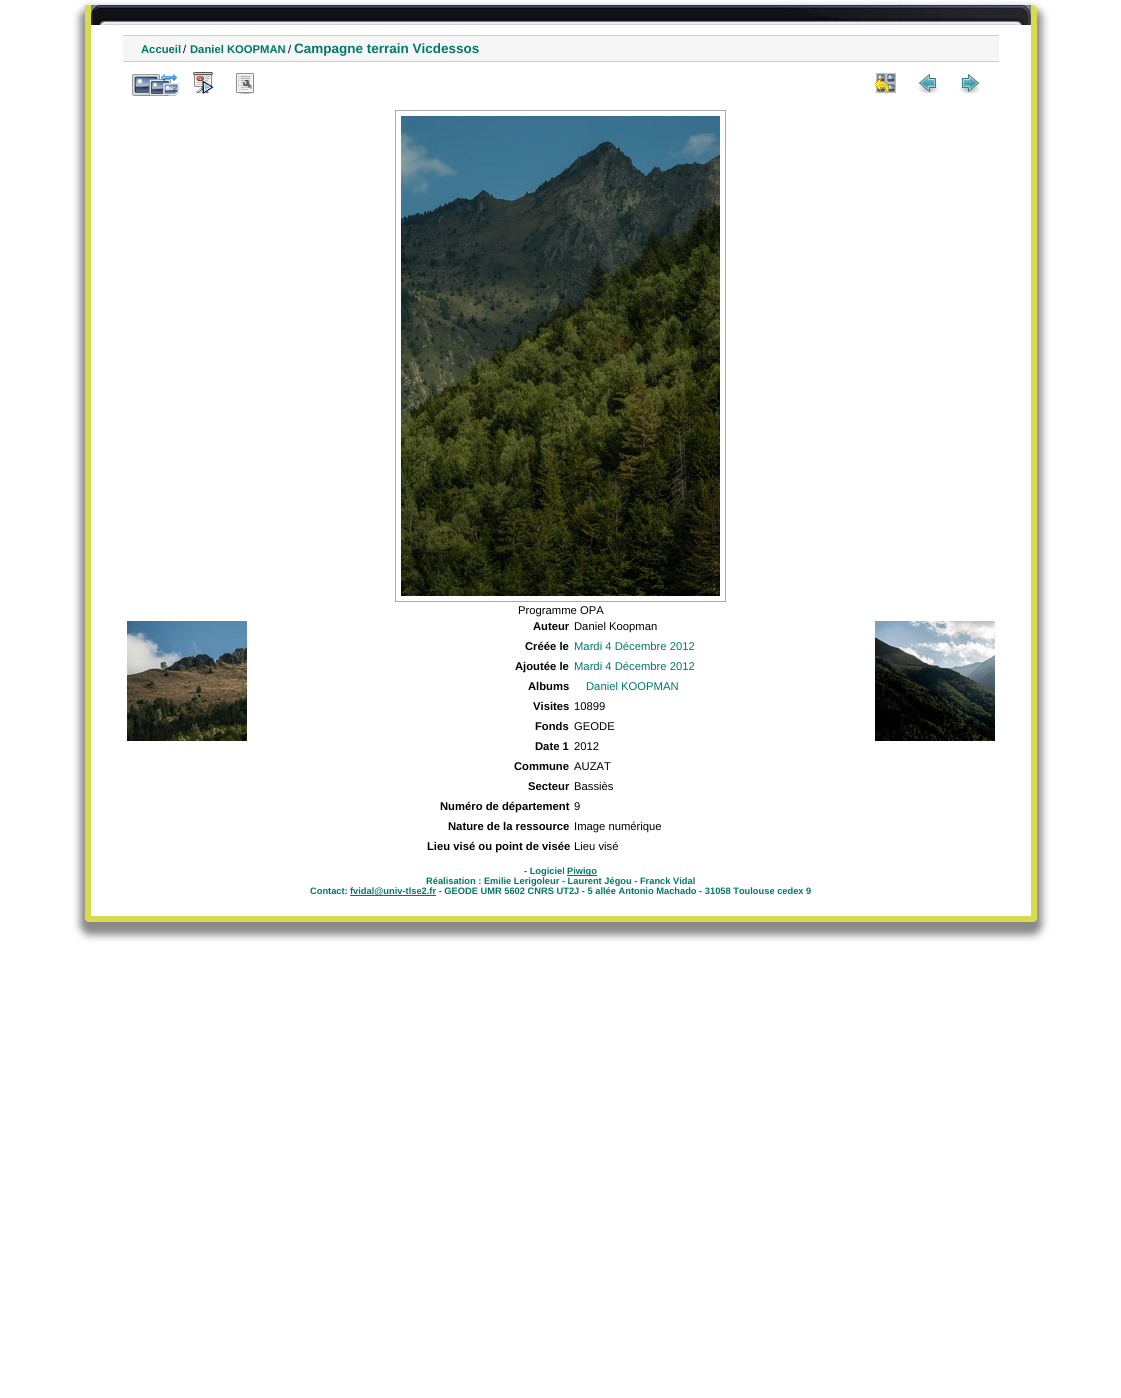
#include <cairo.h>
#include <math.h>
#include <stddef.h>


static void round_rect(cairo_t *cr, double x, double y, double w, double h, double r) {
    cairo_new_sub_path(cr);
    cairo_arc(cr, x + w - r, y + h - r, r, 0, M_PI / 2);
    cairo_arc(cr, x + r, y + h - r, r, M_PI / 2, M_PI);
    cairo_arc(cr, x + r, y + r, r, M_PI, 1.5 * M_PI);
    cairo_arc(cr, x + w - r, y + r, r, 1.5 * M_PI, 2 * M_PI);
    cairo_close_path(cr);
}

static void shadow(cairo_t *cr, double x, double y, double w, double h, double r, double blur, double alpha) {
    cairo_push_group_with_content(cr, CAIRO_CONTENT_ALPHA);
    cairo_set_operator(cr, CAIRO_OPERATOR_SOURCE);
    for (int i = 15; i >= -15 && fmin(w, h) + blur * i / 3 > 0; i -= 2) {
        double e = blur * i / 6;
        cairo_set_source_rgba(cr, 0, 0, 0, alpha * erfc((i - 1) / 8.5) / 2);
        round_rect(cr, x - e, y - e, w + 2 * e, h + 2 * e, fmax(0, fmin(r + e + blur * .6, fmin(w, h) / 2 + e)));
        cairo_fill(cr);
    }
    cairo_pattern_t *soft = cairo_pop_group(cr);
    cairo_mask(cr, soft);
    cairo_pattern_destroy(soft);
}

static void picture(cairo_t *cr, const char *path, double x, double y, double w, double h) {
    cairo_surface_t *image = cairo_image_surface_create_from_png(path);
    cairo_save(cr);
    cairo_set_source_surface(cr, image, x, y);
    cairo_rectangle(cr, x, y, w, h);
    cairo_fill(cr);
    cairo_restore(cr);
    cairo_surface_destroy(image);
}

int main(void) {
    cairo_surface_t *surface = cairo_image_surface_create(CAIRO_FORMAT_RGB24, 1121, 1398);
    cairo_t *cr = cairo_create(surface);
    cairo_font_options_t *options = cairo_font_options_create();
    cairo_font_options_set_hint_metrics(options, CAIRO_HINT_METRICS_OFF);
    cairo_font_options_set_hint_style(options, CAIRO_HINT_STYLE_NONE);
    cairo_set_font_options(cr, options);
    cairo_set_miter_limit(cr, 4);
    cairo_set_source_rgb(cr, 1, 1, 1);
    cairo_paint(cr);
    cairo_save(cr);
    cairo_set_fill_rule(cr, CAIRO_FILL_RULE_EVEN_ODD);
    cairo_new_path(cr);
    cairo_move_to(cr, 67, 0);
    cairo_line_to(cr, 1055, 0);
    cairo_line_to(cr, 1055, 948);
    cairo_line_to(cr, 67, 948);
    cairo_close_path(cr);
    cairo_move_to(cr, 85, 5);
    cairo_line_to(cr, 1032, 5);
    cairo_curve_to(cr, 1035, 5, 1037, 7, 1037, 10);
    cairo_line_to(cr, 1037, 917);
    cairo_curve_to(cr, 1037, 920, 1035, 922, 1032, 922);
    cairo_line_to(cr, 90, 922);
    cairo_curve_to(cr, 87, 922, 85, 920, 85, 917);
    cairo_close_path(cr);
    cairo_clip(cr);
    cairo_set_source_rgb(cr, 0.533, 0.533, 0.533);
    shadow(cr, 80, 8, 962, 927, 10, 4, 1);
    cairo_restore(cr);
    cairo_set_source_rgb(cr, 0.847, 0.859, 0.294);
    cairo_set_fill_rule(cr, CAIRO_FILL_RULE_EVEN_ODD);
    cairo_new_path(cr);
    cairo_move_to(cr, 85, 5);
    cairo_line_to(cr, 1032, 5);
    cairo_curve_to(cr, 1035, 5, 1037, 7, 1037, 10);
    cairo_line_to(cr, 1037, 917);
    cairo_curve_to(cr, 1037, 920, 1035, 922, 1032, 922);
    cairo_line_to(cr, 90, 922);
    cairo_curve_to(cr, 87, 922, 85, 920, 85, 917);
    cairo_close_path(cr);
    cairo_move_to(cr, 91, 5);
    cairo_line_to(cr, 1031, 5);
    cairo_line_to(cr, 1031, 916);
    cairo_line_to(cr, 91, 916);
    cairo_close_path(cr);
    cairo_fill(cr);
    picture(cr, "img1.png", 91, 5, 940, 20);
    cairo_set_source_rgb(cr, 0.961, 0.961, 0.961);
    cairo_rectangle(cr, 123, 36, 876, 25);
    cairo_fill(cr);
    cairo_set_source_rgb(cr, 0.804, 0.804, 0.804);
    cairo_rectangle(cr, 123, 35, 876, 1);
    cairo_fill(cr);
    cairo_rectangle(cr, 123, 61, 876, 1);
    cairo_fill(cr);
    cairo_select_font_face(cr, "Liberation Sans", CAIRO_FONT_SLANT_NORMAL, CAIRO_FONT_WEIGHT_BOLD);
    cairo_set_font_size(cr, 11.25);
    cairo_set_source_rgb(cr, 0, 0.471, 0.416);
    cairo_move_to(cr, 141, 53);
    cairo_show_text(cr, "Accueil");
    cairo_select_font_face(cr, "Liberation Sans", CAIRO_FONT_SLANT_NORMAL, CAIRO_FONT_WEIGHT_NORMAL);
    cairo_set_source_rgb(cr, 0, 0, 0);
    cairo_move_to(cr, 183, 53);
    cairo_show_text(cr, "/");
    cairo_select_font_face(cr, "Liberation Sans", CAIRO_FONT_SLANT_NORMAL, CAIRO_FONT_WEIGHT_BOLD);
    cairo_set_source_rgb(cr, 0, 0.471, 0.416);
    cairo_move_to(cr, 190, 53);
    cairo_show_text(cr, "Daniel KOOPMAN");
    cairo_select_font_face(cr, "Liberation Sans", CAIRO_FONT_SLANT_NORMAL, CAIRO_FONT_WEIGHT_NORMAL);
    cairo_set_source_rgb(cr, 0, 0, 0);
    cairo_move_to(cr, 288, 53);
    cairo_show_text(cr, "/");
    cairo_select_font_face(cr, "Liberation Sans", CAIRO_FONT_SLANT_NORMAL, CAIRO_FONT_WEIGHT_BOLD);
    cairo_set_font_size(cr, 13.5);
    cairo_set_source_rgb(cr, 0, 0.471, 0.416);
    cairo_move_to(cr, 294, 53);
    cairo_show_text(cr, "Campagne terrain Vicdessos");
    picture(cr, "img2.png", 132, 74, 47, 22);
    picture(cr, "img3.png", 193, 72, 21, 22);
    picture(cr, "img4.png", 236, 73, 18, 21);
    picture(cr, "img5.png", 875, 73, 21, 21);
    picture(cr, "img6.png", 918, 74, 21, 20);
    picture(cr, "img7.png", 959, 74, 21, 20);
    cairo_rectangle(cr, 395.5, 110.5, 330, 491);
    cairo_set_source_rgb(cr, 0.667, 0.667, 0.667);
    cairo_set_line_width(cr, 1);
    cairo_stroke(cr);
    picture(cr, "img8.png", 401, 116, 319, 480);
    cairo_select_font_face(cr, "Liberation Sans", CAIRO_FONT_SLANT_NORMAL, CAIRO_FONT_WEIGHT_NORMAL);
    cairo_set_font_size(cr, 11.25);
    cairo_set_source_rgb(cr, 0, 0, 0);
    cairo_move_to(cr, 518, 614);
    cairo_show_text(cr, "Programme OPA");
    picture(cr, "img9.png", 127, 621, 120, 120);
    picture(cr, "img10.png", 875, 621, 120, 120);
    cairo_select_font_face(cr, "Liberation Sans", CAIRO_FONT_SLANT_NORMAL, CAIRO_FONT_WEIGHT_BOLD);
    cairo_move_to(cr, 533, 630);
    cairo_show_text(cr, "Auteur");
    cairo_select_font_face(cr, "Liberation Sans", CAIRO_FONT_SLANT_NORMAL, CAIRO_FONT_WEIGHT_NORMAL);
    cairo_move_to(cr, 574, 630);
    cairo_show_text(cr, "Daniel Koopman");
    cairo_select_font_face(cr, "Liberation Sans", CAIRO_FONT_SLANT_NORMAL, CAIRO_FONT_WEIGHT_BOLD);
    cairo_move_to(cr, 525, 650);
    cairo_show_text(cr, "Créée le");
    cairo_select_font_face(cr, "Liberation Sans", CAIRO_FONT_SLANT_NORMAL, CAIRO_FONT_WEIGHT_NORMAL);
    cairo_set_source_rgb(cr, 0, 0.471, 0.416);
    cairo_move_to(cr, 574, 650);
    cairo_show_text(cr, "Mardi 4 Décembre 2012");
    cairo_select_font_face(cr, "Liberation Sans", CAIRO_FONT_SLANT_NORMAL, CAIRO_FONT_WEIGHT_BOLD);
    cairo_set_source_rgb(cr, 0, 0, 0);
    cairo_move_to(cr, 515, 670);
    cairo_show_text(cr, "Ajoutée le");
    cairo_select_font_face(cr, "Liberation Sans", CAIRO_FONT_SLANT_NORMAL, CAIRO_FONT_WEIGHT_NORMAL);
    cairo_set_source_rgb(cr, 0, 0.471, 0.416);
    cairo_move_to(cr, 574, 670);
    cairo_show_text(cr, "Mardi 4 Décembre 2012");
    cairo_select_font_face(cr, "Liberation Sans", CAIRO_FONT_SLANT_NORMAL, CAIRO_FONT_WEIGHT_BOLD);
    cairo_set_source_rgb(cr, 0, 0, 0);
    cairo_move_to(cr, 528, 690);
    cairo_show_text(cr, "Albums");
    cairo_select_font_face(cr, "Liberation Sans", CAIRO_FONT_SLANT_NORMAL, CAIRO_FONT_WEIGHT_NORMAL);
    cairo_set_source_rgb(cr, 0, 0.471, 0.416);
    cairo_move_to(cr, 586, 690);
    cairo_show_text(cr, "Daniel KOOPMAN");
    cairo_select_font_face(cr, "Liberation Sans", CAIRO_FONT_SLANT_NORMAL, CAIRO_FONT_WEIGHT_BOLD);
    cairo_set_source_rgb(cr, 0, 0, 0);
    cairo_move_to(cr, 533, 710);
    cairo_show_text(cr, "Visites");
    cairo_select_font_face(cr, "Liberation Sans", CAIRO_FONT_SLANT_NORMAL, CAIRO_FONT_WEIGHT_NORMAL);
    cairo_move_to(cr, 574, 710);
    cairo_show_text(cr, "10899");
    cairo_select_font_face(cr, "Liberation Sans", CAIRO_FONT_SLANT_NORMAL, CAIRO_FONT_WEIGHT_BOLD);
    cairo_move_to(cr, 535, 730);
    cairo_show_text(cr, "Fonds");
    cairo_select_font_face(cr, "Liberation Sans", CAIRO_FONT_SLANT_NORMAL, CAIRO_FONT_WEIGHT_NORMAL);
    cairo_move_to(cr, 574, 730);
    cairo_show_text(cr, "GEODE");
    cairo_select_font_face(cr, "Liberation Sans", CAIRO_FONT_SLANT_NORMAL, CAIRO_FONT_WEIGHT_BOLD);
    cairo_move_to(cr, 535, 750);
    cairo_show_text(cr, "Date 1");
    cairo_select_font_face(cr, "Liberation Sans", CAIRO_FONT_SLANT_NORMAL, CAIRO_FONT_WEIGHT_NORMAL);
    cairo_move_to(cr, 574, 750);
    cairo_show_text(cr, "2012");
    cairo_select_font_face(cr, "Liberation Sans", CAIRO_FONT_SLANT_NORMAL, CAIRO_FONT_WEIGHT_BOLD);
    cairo_move_to(cr, 514, 770);
    cairo_show_text(cr, "Commune");
    cairo_select_font_face(cr, "Liberation Sans", CAIRO_FONT_SLANT_NORMAL, CAIRO_FONT_WEIGHT_NORMAL);
    cairo_move_to(cr, 574, 770);
    cairo_show_text(cr, "AUZAT");
    cairo_select_font_face(cr, "Liberation Sans", CAIRO_FONT_SLANT_NORMAL, CAIRO_FONT_WEIGHT_BOLD);
    cairo_move_to(cr, 528, 790);
    cairo_show_text(cr, "Secteur");
    cairo_select_font_face(cr, "Liberation Sans", CAIRO_FONT_SLANT_NORMAL, CAIRO_FONT_WEIGHT_NORMAL);
    cairo_move_to(cr, 574, 790);
    cairo_show_text(cr, "Bassiès");
    cairo_select_font_face(cr, "Liberation Sans", CAIRO_FONT_SLANT_NORMAL, CAIRO_FONT_WEIGHT_BOLD);
    cairo_move_to(cr, 440, 810);
    cairo_show_text(cr, "Numéro de département");
    cairo_select_font_face(cr, "Liberation Sans", CAIRO_FONT_SLANT_NORMAL, CAIRO_FONT_WEIGHT_NORMAL);
    cairo_move_to(cr, 574, 810);
    cairo_show_text(cr, "9");
    cairo_select_font_face(cr, "Liberation Sans", CAIRO_FONT_SLANT_NORMAL, CAIRO_FONT_WEIGHT_BOLD);
    cairo_move_to(cr, 448, 830);
    cairo_show_text(cr, "Nature de la ressource");
    cairo_select_font_face(cr, "Liberation Sans", CAIRO_FONT_SLANT_NORMAL, CAIRO_FONT_WEIGHT_NORMAL);
    cairo_move_to(cr, 574, 830);
    cairo_show_text(cr, "Image numérique");
    cairo_select_font_face(cr, "Liberation Sans", CAIRO_FONT_SLANT_NORMAL, CAIRO_FONT_WEIGHT_BOLD);
    cairo_move_to(cr, 427, 850);
    cairo_show_text(cr, "Lieu visé ou point de visée");
    cairo_select_font_face(cr, "Liberation Sans", CAIRO_FONT_SLANT_NORMAL, CAIRO_FONT_WEIGHT_NORMAL);
    cairo_move_to(cr, 574, 850);
    cairo_show_text(cr, "Lieu visé");
    cairo_select_font_face(cr, "Liberation Sans", CAIRO_FONT_SLANT_NORMAL, CAIRO_FONT_WEIGHT_BOLD);
    cairo_set_font_size(cr, 9.3);
    cairo_set_source_rgb(cr, 0, 0.471, 0.416);
    cairo_move_to(cr, 524, 874);
    cairo_show_text(cr, "- Logiciel");
    cairo_rectangle(cr, 567, 875, 30, 1);
    cairo_fill(cr);
    cairo_move_to(cr, 567, 874);
    cairo_show_text(cr, "Piwigo");
    cairo_move_to(cr, 426, 884);
    cairo_show_text(cr, "Réalisation : Emilie Lerigoleur - Laurent Jégou - Franck Vidal");
    cairo_move_to(cr, 310, 894);
    cairo_show_text(cr, "Contact:");
    cairo_rectangle(cr, 350, 895, 86, 1);
    cairo_fill(cr);
    cairo_move_to(cr, 350, 894);
    cairo_show_text(cr, "fvidal@univ-tlse2.fr - GEODE UMR 5602 CNRS UT2J - 5 allée Antonio Machado - 31058 Toulouse cedex 9");
    cairo_surface_write_to_png(surface, "page.png");
    cairo_font_options_destroy(options);
    cairo_destroy(cr);
    cairo_surface_destroy(surface);
    return 0;
}
